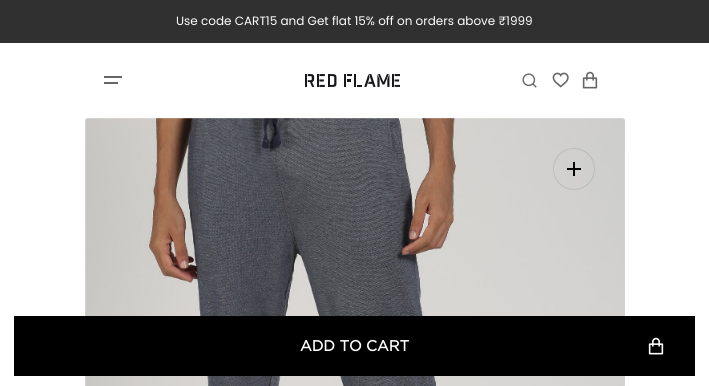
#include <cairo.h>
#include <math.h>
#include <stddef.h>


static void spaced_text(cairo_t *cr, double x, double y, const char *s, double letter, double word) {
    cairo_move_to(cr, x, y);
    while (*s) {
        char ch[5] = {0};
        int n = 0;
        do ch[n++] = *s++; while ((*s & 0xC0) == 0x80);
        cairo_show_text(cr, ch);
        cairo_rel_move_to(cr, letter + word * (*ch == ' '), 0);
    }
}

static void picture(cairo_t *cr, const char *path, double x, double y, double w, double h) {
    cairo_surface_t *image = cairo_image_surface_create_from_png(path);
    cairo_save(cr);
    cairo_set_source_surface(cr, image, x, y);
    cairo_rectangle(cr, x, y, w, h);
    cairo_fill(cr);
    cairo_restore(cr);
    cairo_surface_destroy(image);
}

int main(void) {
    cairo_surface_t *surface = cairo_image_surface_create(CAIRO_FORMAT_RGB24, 709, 386);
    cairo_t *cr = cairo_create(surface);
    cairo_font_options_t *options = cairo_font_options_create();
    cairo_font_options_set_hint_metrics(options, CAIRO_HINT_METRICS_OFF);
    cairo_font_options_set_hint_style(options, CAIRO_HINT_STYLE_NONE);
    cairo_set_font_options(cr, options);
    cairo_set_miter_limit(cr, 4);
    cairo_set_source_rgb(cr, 1, 1, 1);
    cairo_paint(cr);
    cairo_set_source_rgb(cr, 0.188, 0.188, 0.188);
    cairo_rectangle(cr, 0, 0, 709, 43);
    cairo_fill(cr);
    cairo_select_font_face(cr, "Poppins", CAIRO_FONT_SLANT_NORMAL, CAIRO_FONT_WEIGHT_NORMAL);
    cairo_set_font_size(cr, 12);
    cairo_set_source_rgb(cr, 1, 1, 1);
    cairo_move_to(cr, 176, 25);
    cairo_show_text(cr, "Use code CART15 and Get flat 15% off on orders above ₹1999");
    cairo_set_source_rgb(cr, 0.4, 0.4, 0.4);
    cairo_rectangle(cr, 104, 76, 18, 2);
    cairo_fill(cr);
    cairo_rectangle(cr, 104, 82, 14, 2);
    cairo_fill(cr);
    picture(cr, "img1.png", 305, 74, 95, 13);
    picture(cr, "img2.png", 522, 73, 15, 15);
    picture(cr, "img3.png", 552, 72, 17, 16);
    picture(cr, "img4.png", 582, 71, 16, 18);
    picture(cr, "img5.png", 85, 118, 540, 268);
    cairo_arc(cr, 574, 169, 20.5, 0, 2 * M_PI);
    cairo_set_source_rgba(cr, 0, 0, 0, 0.1);
    cairo_set_line_width(cr, 1);
    cairo_stroke(cr);
    picture(cr, "img6.png", 567, 162, 14, 14);
    cairo_set_source_rgb(cr, 0, 0, 0);
    cairo_rectangle(cr, 14, 316, 681, 60);
    cairo_fill(cr);
    cairo_select_font_face(cr, "Gotham", CAIRO_FONT_SLANT_NORMAL, CAIRO_FONT_WEIGHT_BOLD);
    cairo_set_font_size(cr, 15);
    cairo_set_source_rgb(cr, 1, 1, 1);
    spaced_text(cr, 300, 351, "ADD TO CART", -0.1, 0);
    picture(cr, "img7.png", 648, 337, 16, 18);
    cairo_surface_write_to_png(surface, "page.png");
    cairo_font_options_destroy(options);
    cairo_destroy(cr);
    cairo_surface_destroy(surface);
    return 0;
}
